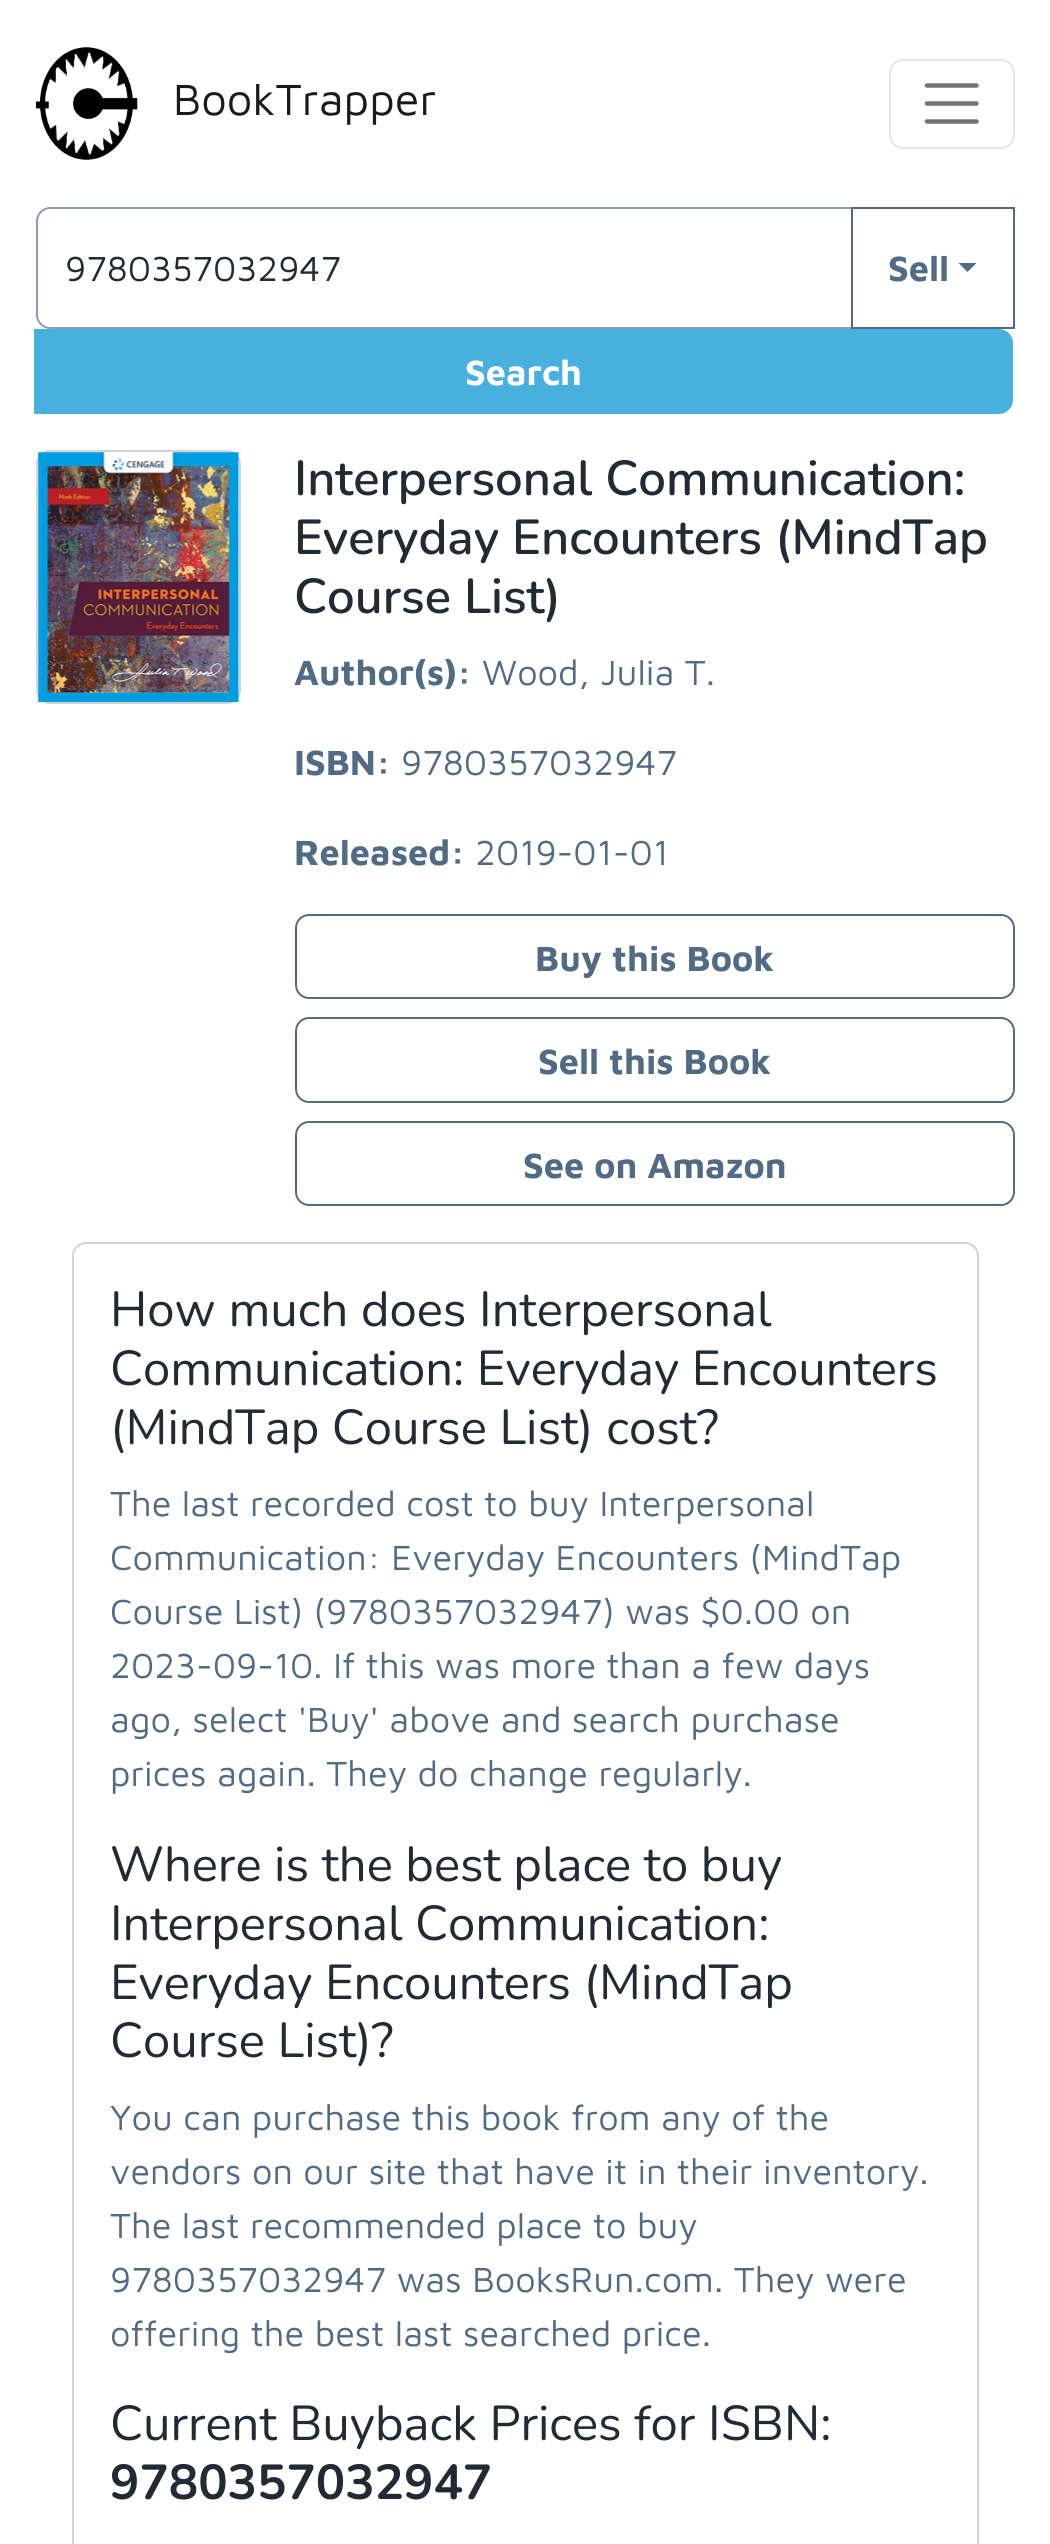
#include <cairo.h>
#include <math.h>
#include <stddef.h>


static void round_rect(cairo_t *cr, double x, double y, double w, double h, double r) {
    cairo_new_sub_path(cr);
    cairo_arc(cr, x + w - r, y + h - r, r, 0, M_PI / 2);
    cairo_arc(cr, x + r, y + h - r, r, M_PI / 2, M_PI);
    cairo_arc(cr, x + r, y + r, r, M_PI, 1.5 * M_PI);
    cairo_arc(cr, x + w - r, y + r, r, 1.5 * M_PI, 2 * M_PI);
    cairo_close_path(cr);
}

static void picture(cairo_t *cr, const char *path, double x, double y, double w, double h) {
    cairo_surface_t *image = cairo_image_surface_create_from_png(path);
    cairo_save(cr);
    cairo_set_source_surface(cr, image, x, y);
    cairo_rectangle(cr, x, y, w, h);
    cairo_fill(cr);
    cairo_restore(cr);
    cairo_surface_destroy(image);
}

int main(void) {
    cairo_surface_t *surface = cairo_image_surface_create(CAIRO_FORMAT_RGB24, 1050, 2544);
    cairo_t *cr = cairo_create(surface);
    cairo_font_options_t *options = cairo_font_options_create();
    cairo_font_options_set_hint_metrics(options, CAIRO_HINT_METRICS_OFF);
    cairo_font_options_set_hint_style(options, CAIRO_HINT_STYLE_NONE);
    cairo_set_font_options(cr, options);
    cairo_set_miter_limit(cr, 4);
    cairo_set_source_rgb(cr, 1, 1, 1);
    cairo_paint(cr);
    picture(cr, "img1.png", 36, 47, 102, 113);
    cairo_select_font_face(cr, "Maven Pro", CAIRO_FONT_SLANT_NORMAL, CAIRO_FONT_WEIGHT_NORMAL);
    cairo_set_font_size(cr, 45);
    cairo_set_source_rgb(cr, 0.102, 0.102, 0.102);
    cairo_move_to(cr, 173, 115);
    cairo_show_text(cr, "BookTrapper");
    round_rect(cr, 890, 60, 124, 88, 13);
    cairo_set_source_rgb(cr, 0.902, 0.902, 0.902);
    cairo_stroke(cr);
    cairo_new_path(cr);
    cairo_move_to(cr, 927, 85.5);
    cairo_line_to(cr, 976.5, 85.5);
    cairo_move_to(cr, 927, 103.5);
    cairo_line_to(cr, 976.5, 103.5);
    cairo_move_to(cr, 927, 121.5);
    cairo_line_to(cr, 976.5, 121.5);
    cairo_set_source_rgb(cr, 0.451, 0.451, 0.451);
    cairo_set_line_width(cr, 4.5);
    cairo_set_line_cap(cr, CAIRO_LINE_CAP_ROUND);
    cairo_stroke(cr);
    cairo_new_path(cr);
    cairo_move_to(cr, 50, 208);
    cairo_line_to(cr, 852, 208);
    cairo_line_to(cr, 852, 328);
    cairo_line_to(cr, 50, 328);
    cairo_curve_to(cr, 43, 328, 37, 322, 37, 315);
    cairo_line_to(cr, 37, 221);
    cairo_curve_to(cr, 37, 214, 43, 208, 50, 208);
    cairo_close_path(cr);
    cairo_set_source_rgb(cr, 0.529, 0.62, 0.706);
    cairo_set_line_width(cr, 2);
    cairo_set_line_cap(cr, CAIRO_LINE_CAP_BUTT);
    cairo_stroke(cr);
    cairo_set_font_size(cr, 36);
    cairo_set_source_rgb(cr, 0.129, 0.169, 0.208);
    cairo_move_to(cr, 65, 281);
    cairo_show_text(cr, "9780357032947");
    cairo_rectangle(cr, 852, 208, 162, 120);
    cairo_set_source_rgb(cr, 0.322, 0.42, 0.518);
    cairo_stroke(cr);
    cairo_select_font_face(cr, "Maven Pro", CAIRO_FONT_SLANT_NORMAL, CAIRO_FONT_WEIGHT_BOLD);
    cairo_move_to(cr, 888, 281);
    cairo_show_text(cr, "Sell");
    cairo_new_path(cr);
    cairo_move_to(cr, 958.5, 263);
    cairo_line_to(cr, 976.5, 263);
    cairo_line_to(cr, 967.5, 272);
    cairo_close_path(cr);
    cairo_fill(cr);
    cairo_set_source_rgb(cr, 0.278, 0.69, 0.875);
    cairo_new_path(cr);
    cairo_move_to(cr, 35, 330);
    cairo_line_to(cr, 999, 330);
    cairo_curve_to(cr, 1006, 330, 1012, 336, 1012, 343);
    cairo_line_to(cr, 1012, 400);
    cairo_curve_to(cr, 1012, 407, 1006, 413, 999, 413);
    cairo_line_to(cr, 35, 413);
    cairo_close_path(cr);
    cairo_fill_preserve(cr);
    cairo_stroke(cr);
    cairo_set_source_rgb(cr, 1, 1, 1);
    cairo_move_to(cr, 465, 385);
    cairo_show_text(cr, "Search");
    round_rect(cr, 37, 451, 203, 252, 13);
    cairo_set_source_rgb(cr, 0.824, 0.824, 0.824);
    cairo_stroke(cr);
    picture(cr, "img2.png", 38, 452, 201, 250);
    cairo_select_font_face(cr, "Nunito SemiBold", CAIRO_FONT_SLANT_NORMAL, CAIRO_FONT_WEIGHT_NORMAL);
    cairo_set_font_size(cr, 49);
    cairo_set_source_rgb(cr, 0.129, 0.169, 0.208);
    cairo_move_to(cr, 294, 495);
    cairo_show_text(cr, "Interpersonal Communication:");
    cairo_move_to(cr, 294, 554);
    cairo_show_text(cr, "Everyday Encounters (MindTap");
    cairo_move_to(cr, 294, 613);
    cairo_show_text(cr, "Course List)");
    cairo_select_font_face(cr, "Maven Pro", CAIRO_FONT_SLANT_NORMAL, CAIRO_FONT_WEIGHT_BOLD);
    cairo_set_font_size(cr, 36);
    cairo_set_source_rgb(cr, 0.322, 0.42, 0.518);
    cairo_move_to(cr, 294, 685);
    cairo_show_text(cr, "Author(s):");
    cairo_select_font_face(cr, "Maven Pro", CAIRO_FONT_SLANT_NORMAL, CAIRO_FONT_WEIGHT_NORMAL);
    cairo_move_to(cr, 482, 685);
    cairo_show_text(cr, "Wood, Julia T.");
    cairo_select_font_face(cr, "Maven Pro", CAIRO_FONT_SLANT_NORMAL, CAIRO_FONT_WEIGHT_BOLD);
    cairo_move_to(cr, 294, 775);
    cairo_show_text(cr, "ISBN:");
    cairo_select_font_face(cr, "Maven Pro", CAIRO_FONT_SLANT_NORMAL, CAIRO_FONT_WEIGHT_NORMAL);
    cairo_move_to(cr, 401, 775);
    cairo_show_text(cr, "9780357032947");
    cairo_select_font_face(cr, "Maven Pro", CAIRO_FONT_SLANT_NORMAL, CAIRO_FONT_WEIGHT_BOLD);
    cairo_move_to(cr, 294, 865);
    cairo_show_text(cr, "Released:");
    cairo_select_font_face(cr, "Maven Pro", CAIRO_FONT_SLANT_NORMAL, CAIRO_FONT_WEIGHT_NORMAL);
    cairo_move_to(cr, 475, 865);
    cairo_show_text(cr, "2019-01-01");
    round_rect(cr, 296, 915, 718, 83, 13);
    cairo_stroke(cr);
    cairo_select_font_face(cr, "Maven Pro", CAIRO_FONT_SLANT_NORMAL, CAIRO_FONT_WEIGHT_BOLD);
    cairo_move_to(cr, 535, 971);
    cairo_show_text(cr, "Buy this Book");
    round_rect(cr, 296, 1018, 718, 84, 13);
    cairo_stroke(cr);
    cairo_move_to(cr, 538, 1074);
    cairo_show_text(cr, "Sell this Book");
    round_rect(cr, 296, 1122, 718, 83, 13);
    cairo_stroke(cr);
    cairo_move_to(cr, 523, 1178);
    cairo_show_text(cr, "See on Amazon");
    round_rect(cr, 73, 1243, 905, 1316, 13);
    cairo_set_source_rgb(cr, 0.824, 0.824, 0.824);
    cairo_stroke(cr);
    cairo_select_font_face(cr, "Nunito", CAIRO_FONT_SLANT_NORMAL, CAIRO_FONT_WEIGHT_NORMAL);
    cairo_set_font_size(cr, 49);
    cairo_set_source_rgb(cr, 0.129, 0.169, 0.208);
    cairo_move_to(cr, 110, 1326);
    cairo_show_text(cr, "How much does Interpersonal");
    cairo_move_to(cr, 110, 1385);
    cairo_show_text(cr, "Communication: Everyday Encounters");
    cairo_move_to(cr, 110, 1444);
    cairo_show_text(cr, "(MindTap Course List) cost?");
    cairo_select_font_face(cr, "Maven Pro", CAIRO_FONT_SLANT_NORMAL, CAIRO_FONT_WEIGHT_NORMAL);
    cairo_set_font_size(cr, 36);
    cairo_set_source_rgb(cr, 0.322, 0.42, 0.518);
    cairo_move_to(cr, 110, 1516);
    cairo_show_text(cr, "The last recorded cost to buy Interpersonal");
    cairo_move_to(cr, 110, 1570);
    cairo_show_text(cr, "Communication: Everyday Encounters (MindTap");
    cairo_move_to(cr, 110, 1624);
    cairo_show_text(cr, "Course List) (9780357032947) was $0.00 on");
    cairo_move_to(cr, 110, 1678);
    cairo_show_text(cr, "2023-09-10. If this was more than a few days");
    cairo_move_to(cr, 110, 1732);
    cairo_show_text(cr, "ago, select 'Buy' above and search purchase");
    cairo_move_to(cr, 110, 1786);
    cairo_show_text(cr, "prices again. They do change regularly.");
    cairo_select_font_face(cr, "Nunito", CAIRO_FONT_SLANT_NORMAL, CAIRO_FONT_WEIGHT_NORMAL);
    cairo_set_font_size(cr, 49);
    cairo_set_source_rgb(cr, 0.129, 0.169, 0.208);
    cairo_move_to(cr, 110, 1881);
    cairo_show_text(cr, "Where is the best place to buy");
    cairo_move_to(cr, 110, 1940);
    cairo_show_text(cr, "Interpersonal Communication:");
    cairo_move_to(cr, 110, 1999);
    cairo_show_text(cr, "Everyday Encounters (MindTap");
    cairo_move_to(cr, 110, 2057);
    cairo_show_text(cr, "Course List)?");
    cairo_select_font_face(cr, "Maven Pro", CAIRO_FONT_SLANT_NORMAL, CAIRO_FONT_WEIGHT_NORMAL);
    cairo_set_font_size(cr, 36);
    cairo_set_source_rgb(cr, 0.322, 0.42, 0.518);
    cairo_move_to(cr, 110, 2130);
    cairo_show_text(cr, "You can purchase this book from any of the");
    cairo_move_to(cr, 110, 2184);
    cairo_show_text(cr, "vendors on our site that have it in their inventory.");
    cairo_move_to(cr, 110, 2238);
    cairo_show_text(cr, "The last recommended place to buy");
    cairo_move_to(cr, 110, 2292);
    cairo_show_text(cr, "9780357032947 was BooksRun.com. They were");
    cairo_move_to(cr, 110, 2346);
    cairo_show_text(cr, "offering the best last searched price.");
    cairo_select_font_face(cr, "Nunito", CAIRO_FONT_SLANT_NORMAL, CAIRO_FONT_WEIGHT_NORMAL);
    cairo_set_font_size(cr, 49);
    cairo_set_source_rgb(cr, 0.129, 0.169, 0.208);
    cairo_move_to(cr, 110, 2440);
    cairo_show_text(cr, "Current Buyback Prices for ISBN:");
    cairo_select_font_face(cr, "Nunito", CAIRO_FONT_SLANT_NORMAL, CAIRO_FONT_WEIGHT_BOLD);
    cairo_move_to(cr, 110, 2499);
    cairo_show_text(cr, "9780357032947");
    cairo_surface_write_to_png(surface, "page.png");
    cairo_font_options_destroy(options);
    cairo_destroy(cr);
    cairo_surface_destroy(surface);
    return 0;
}
